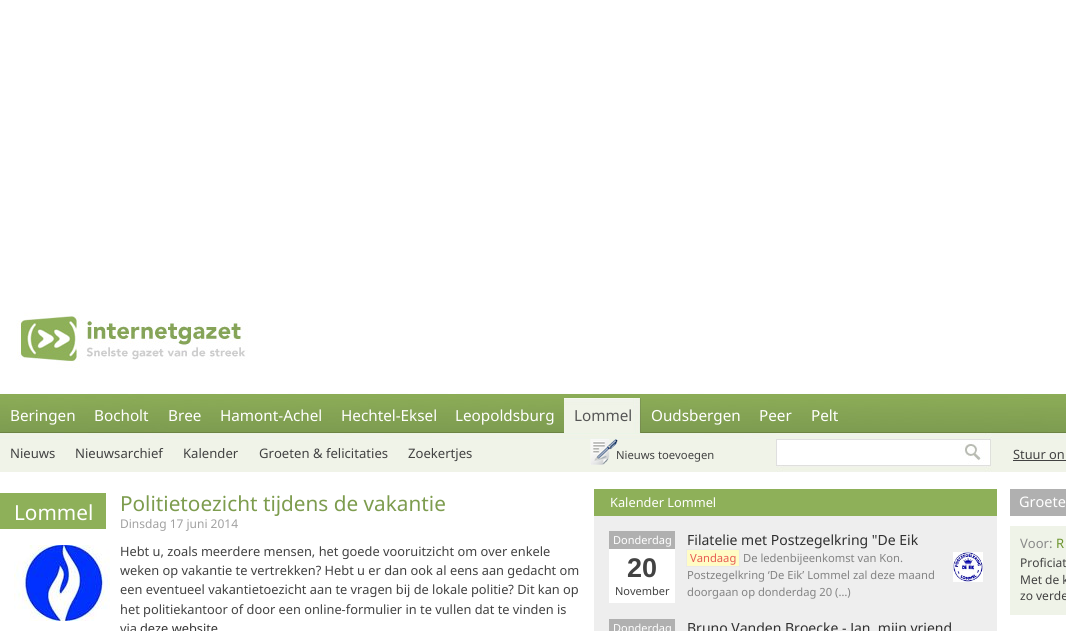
#include <cairo.h>
#include <math.h>
#include <stddef.h>


static void picture(cairo_t *cr, const char *path, double x, double y, double w, double h) {
    cairo_surface_t *image = cairo_image_surface_create_from_png(path);
    cairo_save(cr);
    cairo_set_source_surface(cr, image, x, y);
    cairo_rectangle(cr, x, y, w, h);
    cairo_fill(cr);
    cairo_restore(cr);
    cairo_surface_destroy(image);
}

int main(void) {
    cairo_surface_t *surface = cairo_image_surface_create(CAIRO_FORMAT_RGB24, 1066, 631);
    cairo_t *cr = cairo_create(surface);
    cairo_font_options_t *options = cairo_font_options_create();
    cairo_font_options_set_hint_metrics(options, CAIRO_HINT_METRICS_OFF);
    cairo_font_options_set_hint_style(options, CAIRO_HINT_STYLE_NONE);
    cairo_set_font_options(cr, options);
    cairo_set_miter_limit(cr, 4);
    cairo_set_source_rgb(cr, 1, 1, 1);
    cairo_paint(cr);
    picture(cr, "img1.png", 0, 472, 1066, 159);
    picture(cr, "img2.png", 0, 280, 1066, 192);
    cairo_select_font_face(cr, "Noto Sans", CAIRO_FONT_SLANT_NORMAL, CAIRO_FONT_WEIGHT_NORMAL);
    cairo_set_font_size(cr, 15.25);
    cairo_set_source_rgb(cr, 1, 1, 1);
    cairo_move_to(cr, 10, 421);
    cairo_show_text(cr, "Beringen");
    cairo_move_to(cr, 94, 421);
    cairo_show_text(cr, "Bocholt");
    cairo_move_to(cr, 168, 421);
    cairo_show_text(cr, "Bree");
    cairo_move_to(cr, 220, 421);
    cairo_show_text(cr, "Hamont-Achel");
    cairo_move_to(cr, 341, 421);
    cairo_show_text(cr, "Hechtel-Eksel");
    cairo_move_to(cr, 455, 421);
    cairo_show_text(cr, "Leopoldsburg");
    picture(cr, "img3.png", 564, 398, 77, 35);
    cairo_set_source_rgb(cr, 0.333, 0.333, 0.333);
    cairo_move_to(cr, 574, 421);
    cairo_show_text(cr, "Lommel");
    cairo_set_source_rgb(cr, 1, 1, 1);
    cairo_move_to(cr, 651, 421);
    cairo_show_text(cr, "Oudsbergen");
    cairo_move_to(cr, 759, 421);
    cairo_show_text(cr, "Peer");
    cairo_move_to(cr, 811, 421);
    cairo_show_text(cr, "Pelt");
    cairo_set_font_size(cr, 13.1);
    cairo_set_source_rgb(cr, 0.259, 0.259, 0.259);
    cairo_move_to(cr, 10, 458);
    cairo_show_text(cr, "Nieuws");
    cairo_move_to(cr, 75, 458);
    cairo_show_text(cr, "Nieuwsarchief");
    cairo_move_to(cr, 183, 458);
    cairo_show_text(cr, "Kalender");
    cairo_move_to(cr, 259, 458);
    cairo_show_text(cr, "Groeten & felicitaties");
    cairo_move_to(cr, 408, 458);
    cairo_show_text(cr, "Zoekertjes");
    picture(cr, "img4.png", 590, 439, 28, 26);
    cairo_set_font_size(cr, 11.25);
    cairo_move_to(cr, 616, 459);
    cairo_show_text(cr, "Nieuws toevoegen");
    cairo_set_font_size(cr, 12.8);
    cairo_move_to(cr, 1013, 459);
    cairo_show_text(cr, "Stuur on");
    cairo_rectangle(cr, 1013, 460, 53, 1);
    cairo_fill(cr);
    cairo_set_source_rgb(cr, 0.557, 0.69, 0.349);
    cairo_rectangle(cr, 0, 493, 106, 36);
    cairo_fill(cr);
    cairo_set_font_size(cr, 20.75);
    cairo_set_source_rgb(cr, 1, 1, 1);
    cairo_move_to(cr, 14, 520);
    cairo_show_text(cr, "Lommel");
    cairo_set_source_rgb(cr, 0.49, 0.612, 0.306);
    cairo_move_to(cr, 120, 511);
    cairo_show_text(cr, "Politietoezicht tijdens de vakantie");
    cairo_set_font_size(cr, 12);
    cairo_set_source_rgb(cr, 0.631, 0.631, 0.631);
    cairo_move_to(cr, 120, 528);
    cairo_show_text(cr, "Dinsdag 17 juni 2014");
    picture(cr, "img5.png", 14, 545, 96, 76);
    cairo_set_font_size(cr, 12.8);
    cairo_set_source_rgb(cr, 0.259, 0.259, 0.259);
    cairo_move_to(cr, 120, 556);
    cairo_show_text(cr, "Hebt u, zoals meerdere mensen, het goede vooruitzicht om over enkele");
    cairo_move_to(cr, 120, 575);
    cairo_show_text(cr, "weken op vakantie te vertrekken? Hebt u er dan ook al eens aan gedacht om");
    cairo_move_to(cr, 120, 594);
    cairo_show_text(cr, "een eventueel vakantietoezicht aan te vragen bij de lokale politie? Dit kan op");
    cairo_move_to(cr, 120, 614);
    cairo_show_text(cr, "het politiekantoor of door een online-formulier in te vullen dat te vinden is");
    cairo_move_to(cr, 120, 633);
    cairo_show_text(cr, "via");
    cairo_set_source_rgb(cr, 0.212, 0.212, 0.212);
    cairo_move_to(cr, 140, 633);
    cairo_show_text(cr, "deze website");
    cairo_set_source_rgb(cr, 1, 1, 1);
    cairo_rectangle(cr, 594, 472, 403, 17);
    cairo_fill(cr);
    cairo_set_source_rgb(cr, 0.557, 0.69, 0.349);
    cairo_rectangle(cr, 594, 489, 403, 27);
    cairo_fill(cr);
    cairo_set_source_rgb(cr, 1, 1, 1);
    cairo_move_to(cr, 610, 507);
    cairo_show_text(cr, "Kalender Lommel");
    cairo_rectangle(cr, 609, 549, 66, 54);
    cairo_fill(cr);
    cairo_set_source_rgb(cr, 0.69, 0.69, 0.69);
    cairo_rectangle(cr, 609, 531, 66, 18);
    cairo_fill(cr);
    cairo_set_font_size(cr, 11);
    cairo_set_source_rgb(cr, 1, 1, 1);
    cairo_move_to(cr, 613, 544);
    cairo_show_text(cr, "Donderdag");
    cairo_select_font_face(cr, "Liberation Sans", CAIRO_FONT_SLANT_NORMAL, CAIRO_FONT_WEIGHT_BOLD);
    cairo_set_font_size(cr, 27);
    cairo_set_source_rgb(cr, 0.259, 0.259, 0.259);
    cairo_move_to(cr, 627, 577);
    cairo_show_text(cr, "20");
    cairo_select_font_face(cr, "Noto Sans", CAIRO_FONT_SLANT_NORMAL, CAIRO_FONT_WEIGHT_NORMAL);
    cairo_set_font_size(cr, 11);
    cairo_move_to(cr, 615, 595);
    cairo_show_text(cr, "November");
    cairo_set_font_size(cr, 14);
    cairo_set_source_rgb(cr, 0.188, 0.188, 0.188);
    cairo_move_to(cr, 687, 545);
    cairo_show_text(cr, "Filatelie met Postzegelkring \"De Eik");
    cairo_set_source_rgb(cr, 1, 0.988, 0.773);
    cairo_rectangle(cr, 686.5, 549.5, 53, 17);
    cairo_fill_preserve(cr);
    cairo_set_source_rgb(cr, 0.914, 0.914, 0.914);
    cairo_set_line_width(cr, 1);
    cairo_stroke(cr);
    cairo_set_font_size(cr, 11.2);
    cairo_set_source_rgb(cr, 0.906, 0.357, 0.325);
    cairo_move_to(cr, 690, 562);
    cairo_show_text(cr, "Vandaag");
    cairo_set_source_rgb(cr, 0.514, 0.514, 0.514);
    cairo_move_to(cr, 743, 562);
    cairo_show_text(cr, "De ledenbijeenkomst van Kon.");
    picture(cr, "img6.png", 953, 552, 30, 30);
    cairo_move_to(cr, 687, 579);
    cairo_show_text(cr, "Postzegelkring ‘De Eik’ Lommel zal deze maand");
    cairo_move_to(cr, 687, 596);
    cairo_show_text(cr, "doorgaan op donderdag 20 (…)");
    cairo_set_source_rgb(cr, 0.69, 0.69, 0.69);
    cairo_rectangle(cr, 609, 619, 66, 12);
    cairo_fill(cr);
    cairo_set_font_size(cr, 11);
    cairo_set_source_rgb(cr, 1, 1, 1);
    cairo_move_to(cr, 613, 632);
    cairo_show_text(cr, "Donderdag");
    cairo_set_font_size(cr, 14);
    cairo_set_source_rgb(cr, 0.188, 0.188, 0.188);
    cairo_move_to(cr, 687, 633);
    cairo_show_text(cr, "Bruno Vanden Broecke - Jan, mijn vriend");
    cairo_set_source_rgb(cr, 0.69, 0.69, 0.69);
    cairo_rectangle(cr, 1010, 489, 56, 27);
    cairo_fill(cr);
    cairo_set_font_size(cr, 14.5);
    cairo_set_source_rgb(cr, 1, 1, 1);
    cairo_move_to(cr, 1019, 507);
    cairo_show_text(cr, "Groete");
    cairo_set_source_rgb(cr, 0.937, 0.953, 0.91);
    cairo_rectangle(cr, 1010, 526, 56, 89);
    cairo_fill(cr);
    cairo_set_font_size(cr, 13);
    cairo_set_source_rgb(cr, 0.537, 0.537, 0.537);
    cairo_move_to(cr, 1020, 548);
    cairo_show_text(cr, "Voor:");
    cairo_set_source_rgb(cr, 0.424, 0.58, 0.18);
    cairo_move_to(cr, 1056, 548);
    cairo_show_text(cr, "R");
    cairo_set_font_size(cr, 12);
    cairo_set_source_rgb(cr, 0.259, 0.259, 0.259);
    cairo_move_to(cr, 1020, 567);
    cairo_show_text(cr, "Proficiat");
    cairo_move_to(cr, 1020, 584);
    cairo_show_text(cr, "Met de k");
    cairo_move_to(cr, 1020, 600);
    cairo_show_text(cr, "zo verde");
    cairo_surface_write_to_png(surface, "page.png");
    cairo_font_options_destroy(options);
    cairo_destroy(cr);
    cairo_surface_destroy(surface);
    return 0;
}
